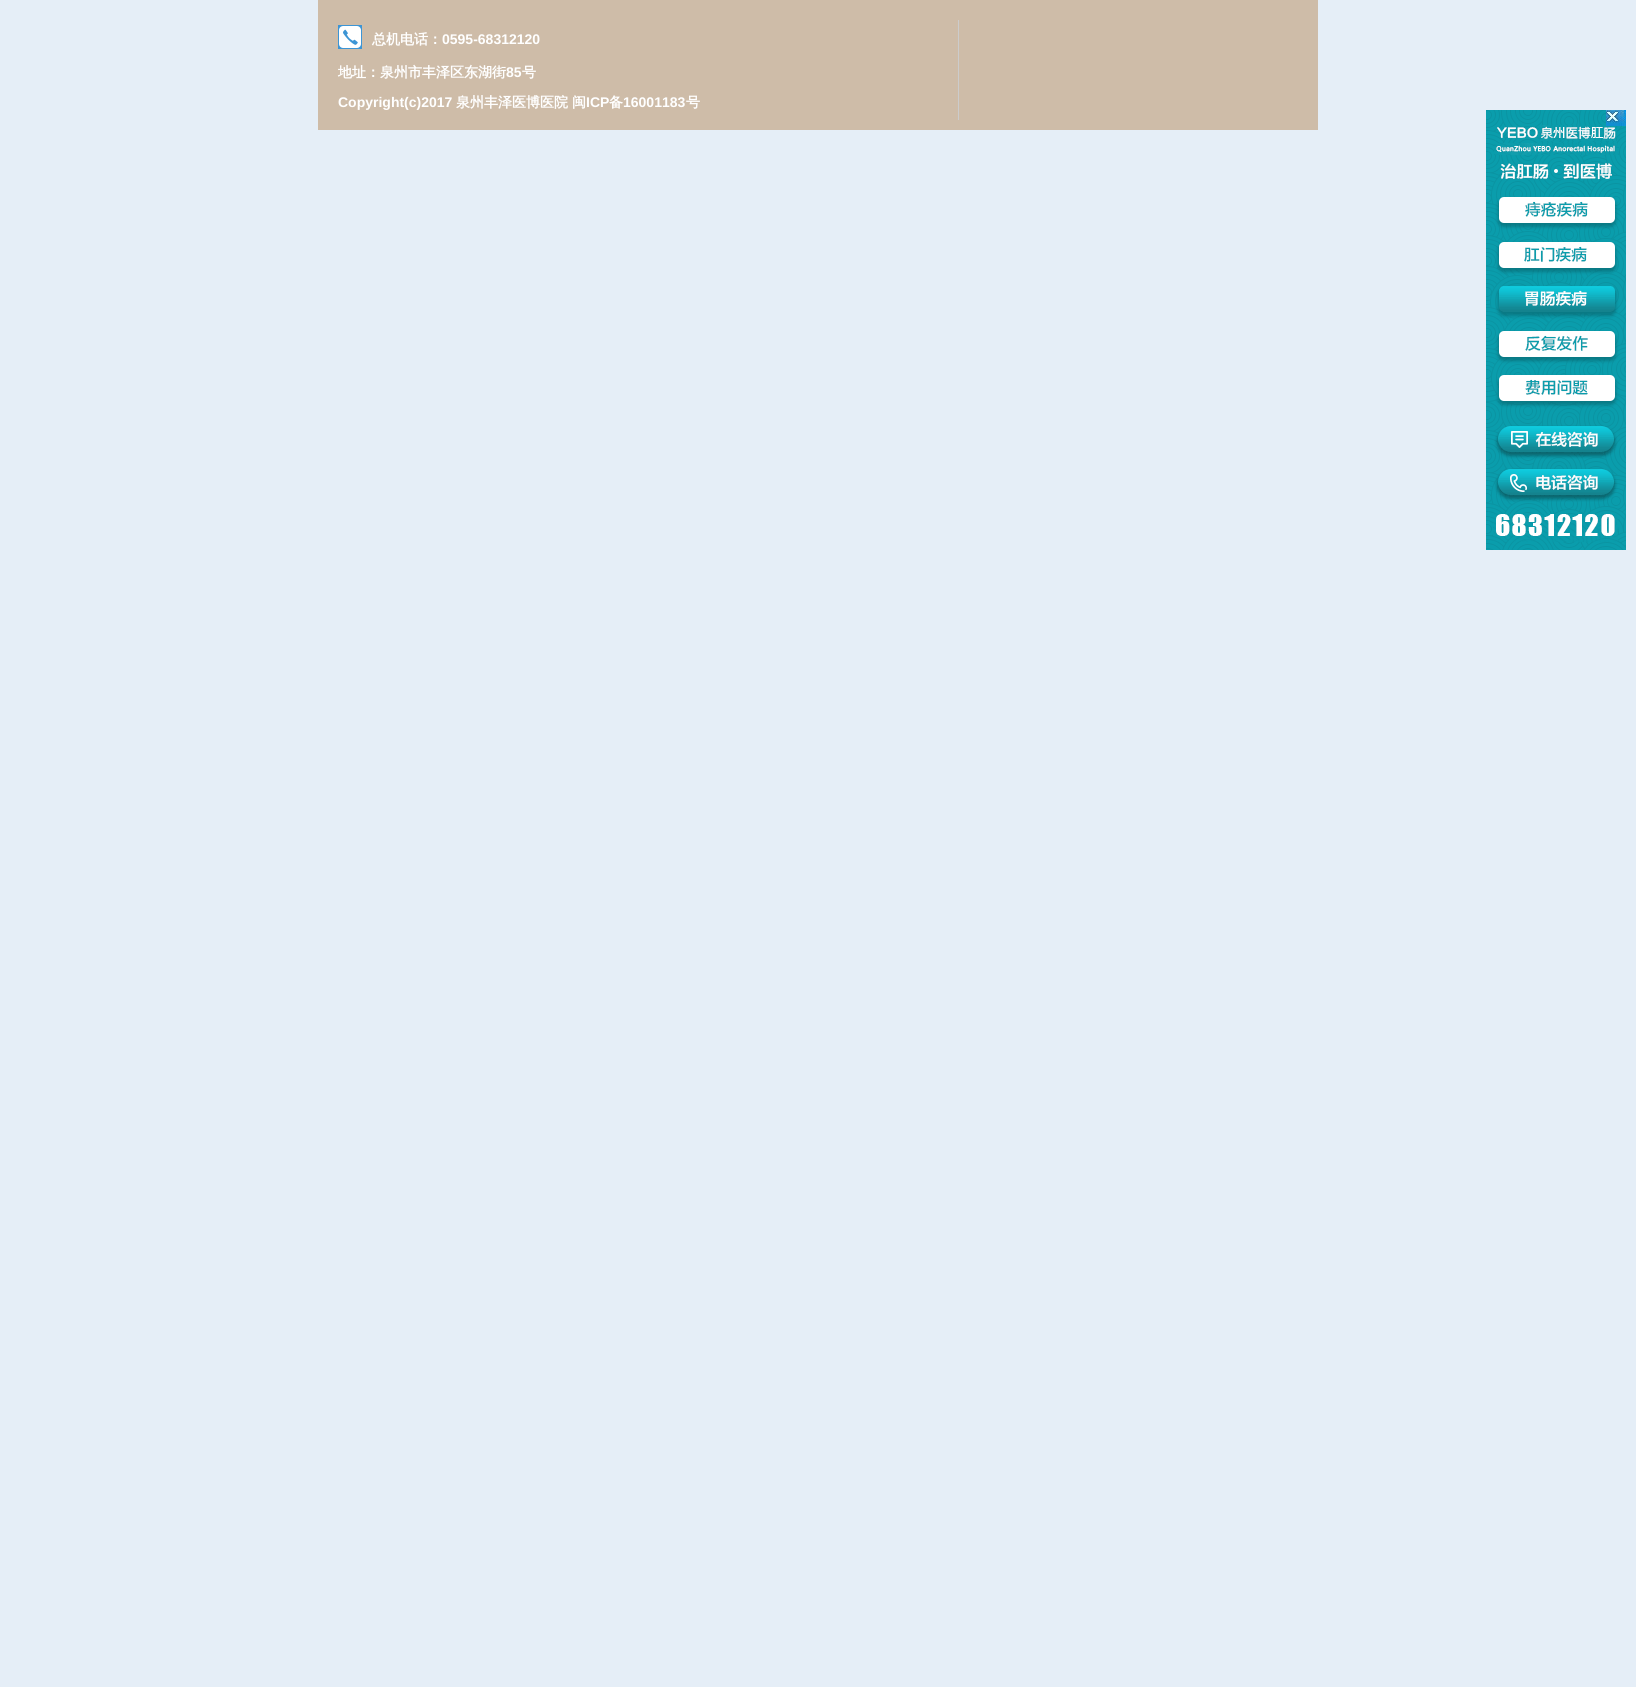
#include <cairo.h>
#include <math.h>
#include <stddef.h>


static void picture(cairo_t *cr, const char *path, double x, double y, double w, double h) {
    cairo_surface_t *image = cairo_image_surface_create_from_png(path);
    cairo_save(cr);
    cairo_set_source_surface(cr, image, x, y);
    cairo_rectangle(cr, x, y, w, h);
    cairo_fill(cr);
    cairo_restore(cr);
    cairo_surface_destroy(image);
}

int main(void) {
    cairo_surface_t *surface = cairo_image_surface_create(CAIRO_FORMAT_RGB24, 1636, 1687);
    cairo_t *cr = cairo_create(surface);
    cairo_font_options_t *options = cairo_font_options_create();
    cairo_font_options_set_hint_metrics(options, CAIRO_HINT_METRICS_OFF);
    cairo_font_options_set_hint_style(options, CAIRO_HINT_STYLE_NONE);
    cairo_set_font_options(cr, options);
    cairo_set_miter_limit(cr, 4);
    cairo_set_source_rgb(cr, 0.898, 0.933, 0.965);
    cairo_paint(cr);
    cairo_set_source_rgb(cr, 0.808, 0.737, 0.659);
    cairo_rectangle(cr, 318, 0, 1000, 130);
    cairo_fill(cr);
    picture(cr, "img1.png", 338, 25, 24, 24);
    cairo_select_font_face(cr, "WenQuanYi Zen Hei", CAIRO_FONT_SLANT_NORMAL, CAIRO_FONT_WEIGHT_BOLD);
    cairo_set_font_size(cr, 14);
    cairo_set_source_rgb(cr, 1, 1, 1);
    cairo_move_to(cr, 372, 44);
    cairo_show_text(cr, "总机电话：");
    cairo_select_font_face(cr, "Liberation Sans", CAIRO_FONT_SLANT_NORMAL, CAIRO_FONT_WEIGHT_BOLD);
    cairo_move_to(cr, 442, 44);
    cairo_show_text(cr, "0595-68312120");
    cairo_select_font_face(cr, "WenQuanYi Zen Hei", CAIRO_FONT_SLANT_NORMAL, CAIRO_FONT_WEIGHT_BOLD);
    cairo_move_to(cr, 338, 77);
    cairo_show_text(cr, "地址：泉州市丰泽区东湖街");
    cairo_select_font_face(cr, "Liberation Sans", CAIRO_FONT_SLANT_NORMAL, CAIRO_FONT_WEIGHT_BOLD);
    cairo_move_to(cr, 506, 77);
    cairo_show_text(cr, "85");
    cairo_select_font_face(cr, "WenQuanYi Zen Hei", CAIRO_FONT_SLANT_NORMAL, CAIRO_FONT_WEIGHT_BOLD);
    cairo_move_to(cr, 522, 77);
    cairo_show_text(cr, "号");
    cairo_select_font_face(cr, "Liberation Sans", CAIRO_FONT_SLANT_NORMAL, CAIRO_FONT_WEIGHT_BOLD);
    cairo_move_to(cr, 338, 107);
    cairo_show_text(cr, "Copyright(c)2017");
    cairo_select_font_face(cr, "WenQuanYi Zen Hei", CAIRO_FONT_SLANT_NORMAL, CAIRO_FONT_WEIGHT_BOLD);
    cairo_move_to(cr, 456, 107);
    cairo_show_text(cr, "泉州丰泽医博医院");
    cairo_move_to(cr, 572, 107);
    cairo_show_text(cr, "闽");
    cairo_select_font_face(cr, "Liberation Sans", CAIRO_FONT_SLANT_NORMAL, CAIRO_FONT_WEIGHT_BOLD);
    cairo_move_to(cr, 586, 107);
    cairo_show_text(cr, "ICP");
    cairo_select_font_face(cr, "WenQuanYi Zen Hei", CAIRO_FONT_SLANT_NORMAL, CAIRO_FONT_WEIGHT_BOLD);
    cairo_move_to(cr, 609, 107);
    cairo_show_text(cr, "备");
    cairo_select_font_face(cr, "Liberation Sans", CAIRO_FONT_SLANT_NORMAL, CAIRO_FONT_WEIGHT_BOLD);
    cairo_move_to(cr, 623, 107);
    cairo_show_text(cr, "16001183");
    cairo_select_font_face(cr, "WenQuanYi Zen Hei", CAIRO_FONT_SLANT_NORMAL, CAIRO_FONT_WEIGHT_BOLD);
    cairo_move_to(cr, 686, 107);
    cairo_show_text(cr, "号");
    cairo_set_source_rgb(cr, 0.8, 0.8, 0.8);
    cairo_rectangle(cr, 958, 20, 1, 100);
    cairo_fill(cr);
    picture(cr, "img2.png", 1486, 110, 140, 440);
    picture(cr, "img3.png", 1606, 110, 20, 16);
    cairo_surface_write_to_png(surface, "page.png");
    cairo_font_options_destroy(options);
    cairo_destroy(cr);
    cairo_surface_destroy(surface);
    return 0;
}
